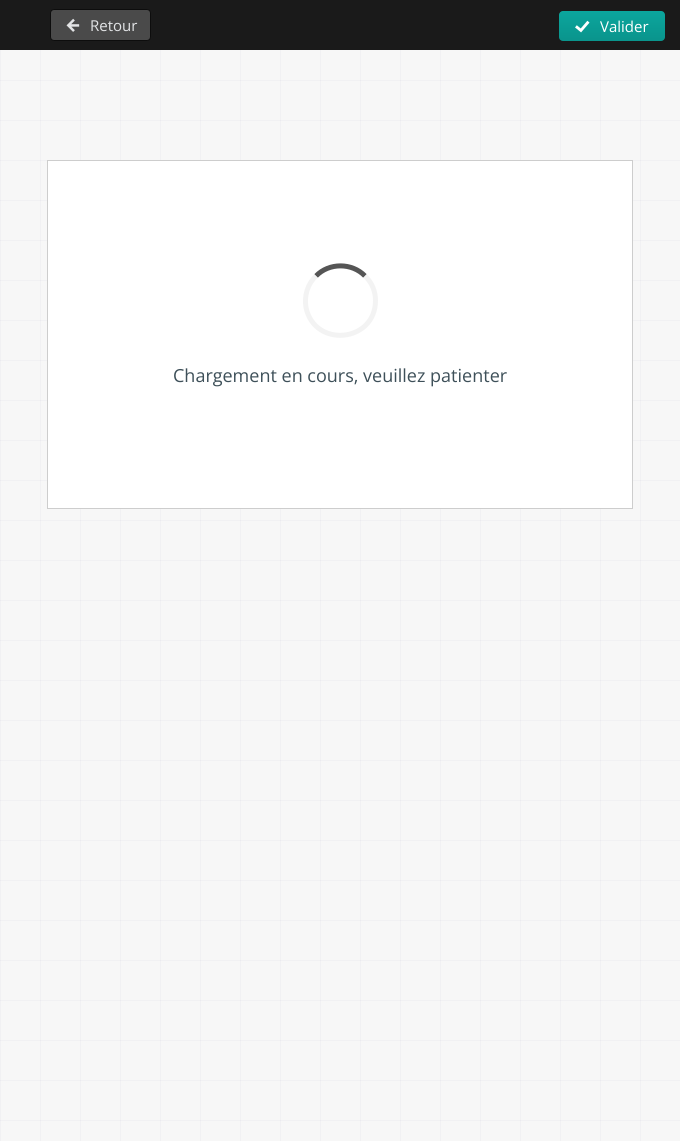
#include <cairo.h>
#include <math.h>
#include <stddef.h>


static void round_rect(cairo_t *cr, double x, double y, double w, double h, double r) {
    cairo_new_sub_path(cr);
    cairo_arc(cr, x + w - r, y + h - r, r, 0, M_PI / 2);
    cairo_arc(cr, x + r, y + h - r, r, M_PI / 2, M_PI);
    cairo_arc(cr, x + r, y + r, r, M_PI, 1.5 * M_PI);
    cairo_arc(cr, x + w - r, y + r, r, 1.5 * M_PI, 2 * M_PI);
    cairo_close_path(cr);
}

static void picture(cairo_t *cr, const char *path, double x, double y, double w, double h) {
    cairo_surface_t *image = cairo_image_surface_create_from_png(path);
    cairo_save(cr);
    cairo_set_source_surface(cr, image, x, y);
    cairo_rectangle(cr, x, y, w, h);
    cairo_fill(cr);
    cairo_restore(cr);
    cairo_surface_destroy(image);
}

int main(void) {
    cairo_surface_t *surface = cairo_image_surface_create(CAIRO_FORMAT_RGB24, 680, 1141);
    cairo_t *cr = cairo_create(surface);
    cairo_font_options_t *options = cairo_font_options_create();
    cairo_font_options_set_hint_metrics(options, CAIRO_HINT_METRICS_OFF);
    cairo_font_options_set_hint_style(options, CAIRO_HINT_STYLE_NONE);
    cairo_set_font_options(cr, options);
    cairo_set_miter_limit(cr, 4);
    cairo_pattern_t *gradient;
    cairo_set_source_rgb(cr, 1, 1, 1);
    cairo_paint(cr);
    picture(cr, "img1.png", 0, 50, 680, 1091);
    cairo_set_source_rgb(cr, 0.102, 0.102, 0.102);
    cairo_rectangle(cr, 0, 0, 680, 50);
    cairo_fill(cr);
    cairo_set_source_rgb(cr, 0.29, 0.29, 0.29);
    round_rect(cr, 50.5, 9.5, 100, 31, 3.5);
    cairo_fill_preserve(cr);
    cairo_set_source_rgb(cr, 0.051, 0.051, 0.051);
    cairo_set_line_width(cr, 1);
    cairo_stroke(cr);
    picture(cr, "img2.png", 66, 18, 14, 14);
    cairo_select_font_face(cr, "Open Sans", CAIRO_FONT_SLANT_NORMAL, CAIRO_FONT_WEIGHT_NORMAL);
    cairo_set_font_size(cr, 15);
    cairo_set_source_rgb(cr, 0.886, 0.894, 0.902);
    cairo_move_to(cr, 90, 31);
    cairo_show_text(cr, "Retour");
    gradient = cairo_pattern_create_linear(612, 11, 612, 41);
    cairo_pattern_add_color_stop_rgba(gradient, 0, 0.043, 0.651, 0.616, 1);
    cairo_pattern_add_color_stop_rgba(gradient, 1, 0.039, 0.58, 0.549, 1);
    cairo_set_source(cr, gradient);
    cairo_pattern_destroy(gradient);
    round_rect(cr, 559, 11, 106, 30, 4);
    cairo_fill(cr);
    picture(cr, "img3.png", 575, 20, 15, 13);
    cairo_set_source_rgb(cr, 1, 1, 1);
    cairo_move_to(cr, 600, 32);
    cairo_show_text(cr, "Valider");
    cairo_rectangle(cr, 47.5, 160.5, 585, 348);
    cairo_fill_preserve(cr);
    cairo_set_source_rgb(cr, 0.804, 0.804, 0.804);
    cairo_stroke(cr);
    cairo_new_path(cr);
    cairo_move_to(cr, 316, 276);
    cairo_curve_to(cr, 329, 262.5, 352, 262.5, 365, 276);
    cairo_set_source_rgb(cr, 0.333, 0.333, 0.333);
    cairo_set_line_width(cr, 5);
    cairo_stroke(cr);
    cairo_new_path(cr);
    cairo_move_to(cr, 365, 276);
    cairo_curve_to(cr, 372, 282.5, 375.5, 291.5, 375.5, 300.5);
    cairo_curve_to(cr, 375.5, 342.5, 314.5, 348.5, 306, 307.5);
    cairo_curve_to(cr, 304, 296, 307.5, 284, 316, 276);
    cairo_set_source_rgb(cr, 0.953, 0.953, 0.953);
    cairo_stroke(cr);
    cairo_set_font_size(cr, 18);
    cairo_set_source_rgb(cr, 0.243, 0.314, 0.349);
    cairo_move_to(cr, 173, 382);
    cairo_show_text(cr, "Chargement en cours, veuillez patienter");
    cairo_surface_write_to_png(surface, "page.png");
    cairo_font_options_destroy(options);
    cairo_destroy(cr);
    cairo_surface_destroy(surface);
    return 0;
}
